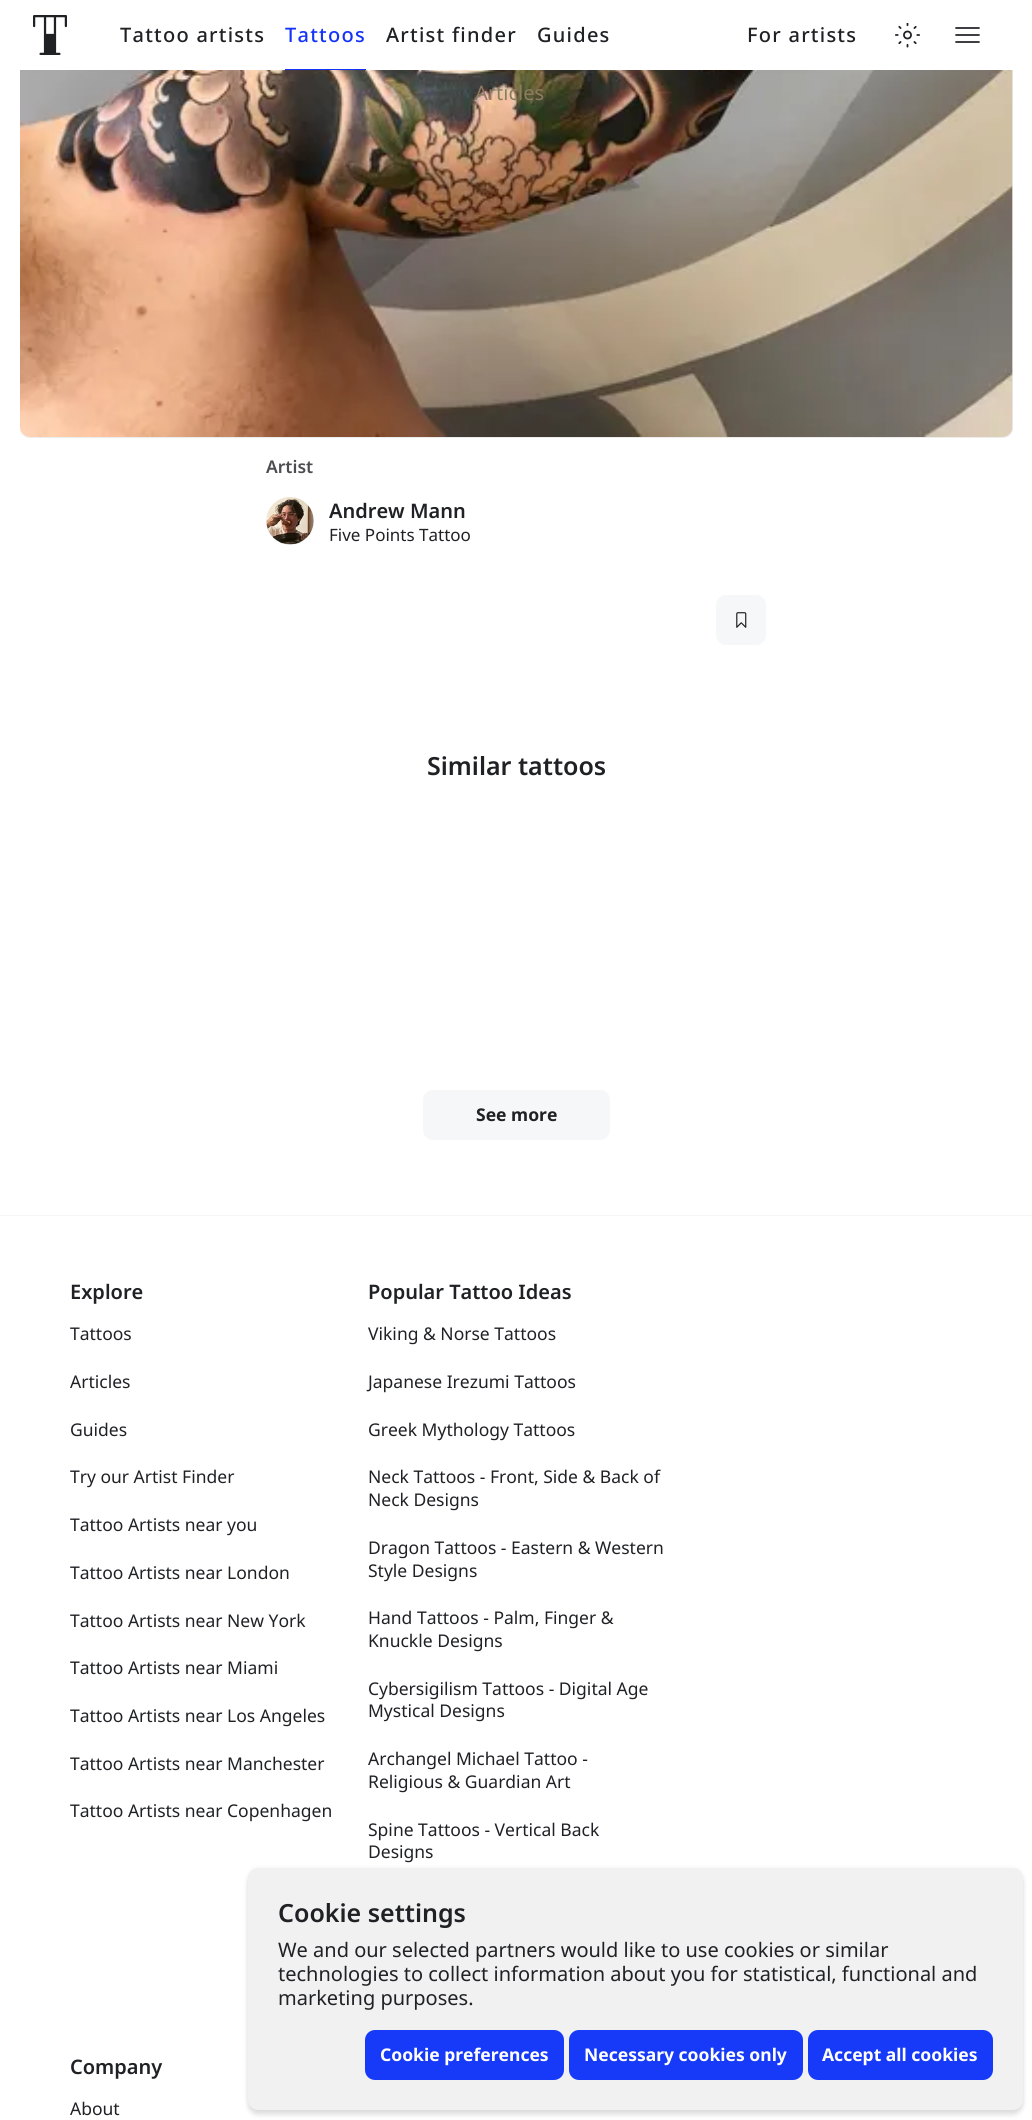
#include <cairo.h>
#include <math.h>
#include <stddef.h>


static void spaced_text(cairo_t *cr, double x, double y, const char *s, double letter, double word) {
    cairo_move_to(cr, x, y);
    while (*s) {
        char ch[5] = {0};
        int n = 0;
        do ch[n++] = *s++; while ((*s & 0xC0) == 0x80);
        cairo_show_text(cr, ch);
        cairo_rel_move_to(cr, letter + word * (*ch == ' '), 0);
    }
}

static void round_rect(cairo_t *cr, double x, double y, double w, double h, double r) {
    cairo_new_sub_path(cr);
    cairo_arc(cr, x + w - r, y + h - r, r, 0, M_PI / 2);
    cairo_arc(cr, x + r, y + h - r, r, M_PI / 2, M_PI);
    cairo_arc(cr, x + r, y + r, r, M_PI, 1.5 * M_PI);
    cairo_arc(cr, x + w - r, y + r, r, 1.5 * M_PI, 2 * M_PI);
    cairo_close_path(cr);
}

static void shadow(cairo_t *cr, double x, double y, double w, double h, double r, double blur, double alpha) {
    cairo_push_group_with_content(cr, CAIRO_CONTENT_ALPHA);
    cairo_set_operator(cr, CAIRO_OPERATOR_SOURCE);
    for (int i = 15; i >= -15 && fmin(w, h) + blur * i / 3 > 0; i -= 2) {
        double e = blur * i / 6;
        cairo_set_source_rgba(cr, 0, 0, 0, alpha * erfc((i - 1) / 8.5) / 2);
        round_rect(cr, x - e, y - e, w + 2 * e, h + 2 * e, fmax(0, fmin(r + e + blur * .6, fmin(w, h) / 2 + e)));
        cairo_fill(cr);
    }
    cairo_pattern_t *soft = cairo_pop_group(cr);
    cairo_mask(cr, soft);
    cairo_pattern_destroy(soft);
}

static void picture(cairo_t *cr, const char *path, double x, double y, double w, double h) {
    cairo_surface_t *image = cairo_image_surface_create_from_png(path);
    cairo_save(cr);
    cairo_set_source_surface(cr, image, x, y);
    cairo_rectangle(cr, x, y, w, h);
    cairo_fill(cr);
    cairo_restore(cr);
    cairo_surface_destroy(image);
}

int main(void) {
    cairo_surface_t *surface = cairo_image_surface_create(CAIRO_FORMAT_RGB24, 1032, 2120);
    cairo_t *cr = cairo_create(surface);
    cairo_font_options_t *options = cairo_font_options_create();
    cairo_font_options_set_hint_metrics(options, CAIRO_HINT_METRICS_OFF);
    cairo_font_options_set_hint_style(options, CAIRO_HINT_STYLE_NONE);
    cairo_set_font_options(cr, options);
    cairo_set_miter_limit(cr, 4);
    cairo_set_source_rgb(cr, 1, 1, 1);
    cairo_paint(cr);
    cairo_set_source_rgb(cr, 0.922, 0.922, 0.922);
    round_rect(cr, 20, -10, 993, 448, 10);
    cairo_fill(cr);
    cairo_set_source_rgb(cr, 1, 1, 1);
    cairo_rectangle(cr, 20, 0, 993, 70);
    cairo_fill(cr);
    picture(cr, "img1.png", 33, 15, 34, 40);
    cairo_select_font_face(cr, "Noto Sans Medium", CAIRO_FONT_SLANT_NORMAL, CAIRO_FONT_WEIGHT_NORMAL);
    cairo_set_font_size(cr, 20);
    cairo_set_source_rgb(cr, 0.125, 0.129, 0.145);
    spaced_text(cr, 120, 42, "Tattoo artists", 1.25, 0);
    cairo_set_source_rgb(cr, 0.075, 0.204, 0.969);
    spaced_text(cr, 285, 42, "Tattoos", 1.25, 0);
    cairo_rectangle(cr, 285, 69, 81, 1);
    cairo_fill(cr);
    cairo_set_source_rgb(cr, 0.125, 0.129, 0.145);
    spaced_text(cr, 386, 42, "Artist finder", 1.25, 0);
    spaced_text(cr, 537, 42, "Guides", 1.25, 0);
    picture(cr, "img3.png", 20, 70, 993, 367);
    cairo_select_font_face(cr, "Noto Sans", CAIRO_FONT_SLANT_NORMAL, CAIRO_FONT_WEIGHT_NORMAL);
    cairo_set_source_rgb(cr, 0.553, 0.486, 0.38);
    cairo_move_to(cr, 475, 100);
    cairo_show_text(cr, "Articles");
    cairo_select_font_face(cr, "Noto Sans Medium", CAIRO_FONT_SLANT_NORMAL, CAIRO_FONT_WEIGHT_NORMAL);
    cairo_set_source_rgb(cr, 0.125, 0.129, 0.145);
    spaced_text(cr, 747, 42, "For artists", 1.25, 0);
    picture(cr, "img2.png", 895, 23, 25, 25);
    cairo_new_path(cr);
    cairo_move_to(cr, 956, 42);
    cairo_line_to(cr, 979, 42);
    cairo_move_to(cr, 956, 35);
    cairo_line_to(cr, 979, 35);
    cairo_move_to(cr, 956, 28);
    cairo_line_to(cr, 979, 28);
    cairo_set_line_width(cr, 1.7);
    cairo_set_line_cap(cr, CAIRO_LINE_CAP_ROUND);
    cairo_set_line_join(cr, CAIRO_LINE_JOIN_ROUND);
    cairo_stroke(cr);
    cairo_select_font_face(cr, "Noto Sans SemiBold", CAIRO_FONT_SLANT_NORMAL, CAIRO_FONT_WEIGHT_NORMAL);
    cairo_set_font_size(cr, 17.5);
    cairo_set_source_rgb(cr, 0.302, 0.302, 0.318);
    cairo_move_to(cr, 266, 473);
    cairo_show_text(cr, "Artist");
    cairo_set_source_rgb(cr, 0.961, 0.965, 0.969);
    round_rect(cr, 266, 498, 48, 47, 23.5);
    cairo_fill(cr);
    picture(cr, "img4.png", 266, 497, 48, 48);
    cairo_set_font_size(cr, 20);
    cairo_set_source_rgb(cr, 0.125, 0.129, 0.145);
    cairo_move_to(cr, 329, 518);
    cairo_show_text(cr, "Andrew Mann");
    cairo_select_font_face(cr, "Noto Sans", CAIRO_FONT_SLANT_NORMAL, CAIRO_FONT_WEIGHT_NORMAL);
    cairo_set_font_size(cr, 17);
    cairo_move_to(cr, 329, 541);
    cairo_show_text(cr, "Five Points Tattoo");
    cairo_set_source_rgb(cr, 0.961, 0.965, 0.969);
    round_rect(cr, 716, 595, 50, 50, 10);
    cairo_fill(cr);
    picture(cr, "img5.png", 736, 612, 11, 16);
    cairo_select_font_face(cr, "Noto Sans SemiBold", CAIRO_FONT_SLANT_NORMAL, CAIRO_FONT_WEIGHT_NORMAL);
    cairo_set_font_size(cr, 25);
    cairo_set_source_rgb(cr, 0.125, 0.129, 0.145);
    cairo_move_to(cr, 427, 775);
    cairo_show_text(cr, "Similar tattoos");
    cairo_set_source_rgb(cr, 0.961, 0.965, 0.969);
    round_rect(cr, 423, 1090, 187, 50, 10);
    cairo_fill(cr);
    cairo_select_font_face(cr, "Noto Sans", CAIRO_FONT_SLANT_NORMAL, CAIRO_FONT_WEIGHT_BOLD);
    cairo_set_font_size(cr, 17.5);
    cairo_set_source_rgb(cr, 0.125, 0.129, 0.145);
    cairo_move_to(cr, 476, 1121);
    cairo_show_text(cr, "See more");
    cairo_set_source_rgb(cr, 0.961, 0.961, 0.961);
    cairo_rectangle(cr, 0, 1215, 1032, 1);
    cairo_fill(cr);
    cairo_select_font_face(cr, "Noto Sans SemiBold", CAIRO_FONT_SLANT_NORMAL, CAIRO_FONT_WEIGHT_NORMAL);
    cairo_set_font_size(cr, 20);
    cairo_set_source_rgb(cr, 0.125, 0.129, 0.145);
    cairo_move_to(cr, 70, 1299);
    cairo_show_text(cr, "Explore");
    cairo_select_font_face(cr, "Noto Sans", CAIRO_FONT_SLANT_NORMAL, CAIRO_FONT_WEIGHT_NORMAL);
    cairo_set_font_size(cr, 17.5);
    cairo_move_to(cr, 70, 1340);
    cairo_show_text(cr, "Tattoos");
    cairo_move_to(cr, 70, 1388);
    cairo_show_text(cr, "Articles");
    cairo_move_to(cr, 70, 1436);
    cairo_show_text(cr, "Guides");
    cairo_move_to(cr, 70, 1483);
    cairo_show_text(cr, "Try our Artist Finder");
    cairo_move_to(cr, 70, 1531);
    cairo_show_text(cr, "Tattoo Artists near you");
    cairo_move_to(cr, 70, 1579);
    cairo_show_text(cr, "Tattoo Artists near London");
    cairo_move_to(cr, 70, 1627);
    cairo_show_text(cr, "Tattoo Artists near New York");
    cairo_move_to(cr, 70, 1674);
    cairo_show_text(cr, "Tattoo Artists near Miami");
    cairo_move_to(cr, 70, 1722);
    cairo_show_text(cr, "Tattoo Artists near Los Angeles");
    cairo_move_to(cr, 70, 1770);
    cairo_show_text(cr, "Tattoo Artists near Manchester");
    cairo_move_to(cr, 70, 1817);
    cairo_show_text(cr, "Tattoo Artists near Copenhagen");
    cairo_select_font_face(cr, "Noto Sans SemiBold", CAIRO_FONT_SLANT_NORMAL, CAIRO_FONT_WEIGHT_NORMAL);
    cairo_set_font_size(cr, 20);
    cairo_move_to(cr, 368, 1299);
    cairo_show_text(cr, "Popular Tattoo Ideas");
    cairo_select_font_face(cr, "Noto Sans", CAIRO_FONT_SLANT_NORMAL, CAIRO_FONT_WEIGHT_NORMAL);
    cairo_set_font_size(cr, 17.5);
    cairo_move_to(cr, 368, 1340);
    cairo_show_text(cr, "Viking & Norse Tattoos");
    cairo_move_to(cr, 368, 1388);
    cairo_show_text(cr, "Japanese Irezumi Tattoos");
    cairo_move_to(cr, 368, 1436);
    cairo_show_text(cr, "Greek Mythology Tattoos");
    cairo_move_to(cr, 368, 1483);
    cairo_show_text(cr, "Neck Tattoos - Front, Side & Back of");
    cairo_move_to(cr, 368, 1506);
    cairo_show_text(cr, "Neck Designs");
    cairo_move_to(cr, 368, 1554);
    cairo_show_text(cr, "Dragon Tattoos - Eastern & Western");
    cairo_move_to(cr, 368, 1577);
    cairo_show_text(cr, "Style Designs");
    cairo_move_to(cr, 368, 1624);
    cairo_show_text(cr, "Hand Tattoos - Palm, Finger &");
    cairo_move_to(cr, 368, 1647);
    cairo_show_text(cr, "Knuckle Designs");
    cairo_move_to(cr, 368, 1695);
    cairo_show_text(cr, "Cybersigilism Tattoos - Digital Age");
    cairo_move_to(cr, 368, 1717);
    cairo_show_text(cr, "Mystical Designs");
    cairo_move_to(cr, 368, 1765);
    cairo_show_text(cr, "Archangel Michael Tattoo -");
    cairo_move_to(cr, 368, 1788);
    cairo_show_text(cr, "Religious & Guardian Art");
    cairo_move_to(cr, 368, 1836);
    cairo_show_text(cr, "Spine Tattoos - Vertical Back");
    cairo_move_to(cr, 368, 1858);
    cairo_show_text(cr, "Designs");
    cairo_select_font_face(cr, "Noto Sans SemiBold", CAIRO_FONT_SLANT_NORMAL, CAIRO_FONT_WEIGHT_NORMAL);
    cairo_set_font_size(cr, 20);
    cairo_move_to(cr, 70, 2074);
    cairo_show_text(cr, "Company");
    cairo_select_font_face(cr, "Noto Sans", CAIRO_FONT_SLANT_NORMAL, CAIRO_FONT_WEIGHT_NORMAL);
    cairo_set_font_size(cr, 17.5);
    cairo_move_to(cr, 70, 2115);
    cairo_show_text(cr, "About");
    cairo_set_source_rgb(cr, 0, 0, 0);
    shadow(cr, 248, 1868, 775, 242, 10, 2.5, 0.06);
    shadow(cr, 248, 1873, 775, 242, 10, 2.5, 0.12);
    cairo_set_source_rgb(cr, 0.945, 0.945, 0.945);
    round_rect(cr, 248, 1868, 775, 242, 10);
    cairo_fill(cr);
    cairo_select_font_face(cr, "Noto Sans SemiBold", CAIRO_FONT_SLANT_NORMAL, CAIRO_FONT_WEIGHT_NORMAL);
    cairo_set_font_size(cr, 25);
    cairo_set_source_rgb(cr, 0.125, 0.129, 0.145);
    cairo_move_to(cr, 278, 1922);
    cairo_show_text(cr, "Cookie settings");
    cairo_select_font_face(cr, "Noto Sans", CAIRO_FONT_SLANT_NORMAL, CAIRO_FONT_WEIGHT_NORMAL);
    cairo_set_font_size(cr, 20);
    cairo_move_to(cr, 278, 1957);
    cairo_show_text(cr, "We and our selected partners would like to use cookies or similar");
    cairo_move_to(cr, 278, 1981);
    cairo_show_text(cr, "technologies to collect information about you for statistical, functional and");
    cairo_move_to(cr, 278, 2005);
    cairo_show_text(cr, "marketing purposes.");
    cairo_set_source_rgb(cr, 0.09, 0.227, 0.973);
    round_rect(cr, 365, 2030, 199, 50, 10);
    cairo_fill(cr);
    cairo_select_font_face(cr, "Noto Sans", CAIRO_FONT_SLANT_NORMAL, CAIRO_FONT_WEIGHT_BOLD);
    cairo_set_font_size(cr, 17.5);
    cairo_set_source_rgb(cr, 1, 1, 1);
    cairo_move_to(cr, 380, 2061);
    cairo_show_text(cr, "Cookie preferences");
    cairo_set_source_rgb(cr, 0.09, 0.227, 0.973);
    round_rect(cr, 569, 2030, 234, 50, 10);
    cairo_fill(cr);
    cairo_set_source_rgb(cr, 1, 1, 1);
    cairo_move_to(cr, 584, 2061);
    cairo_show_text(cr, "Necessary cookies only");
    cairo_set_source_rgb(cr, 0.09, 0.227, 0.973);
    round_rect(cr, 808, 2030, 185, 50, 10);
    cairo_fill(cr);
    cairo_set_source_rgb(cr, 1, 1, 1);
    cairo_move_to(cr, 822, 2061);
    cairo_show_text(cr, "Accept all cookies");
    cairo_surface_write_to_png(surface, "page.png");
    cairo_font_options_destroy(options);
    cairo_destroy(cr);
    cairo_surface_destroy(surface);
    return 0;
}
